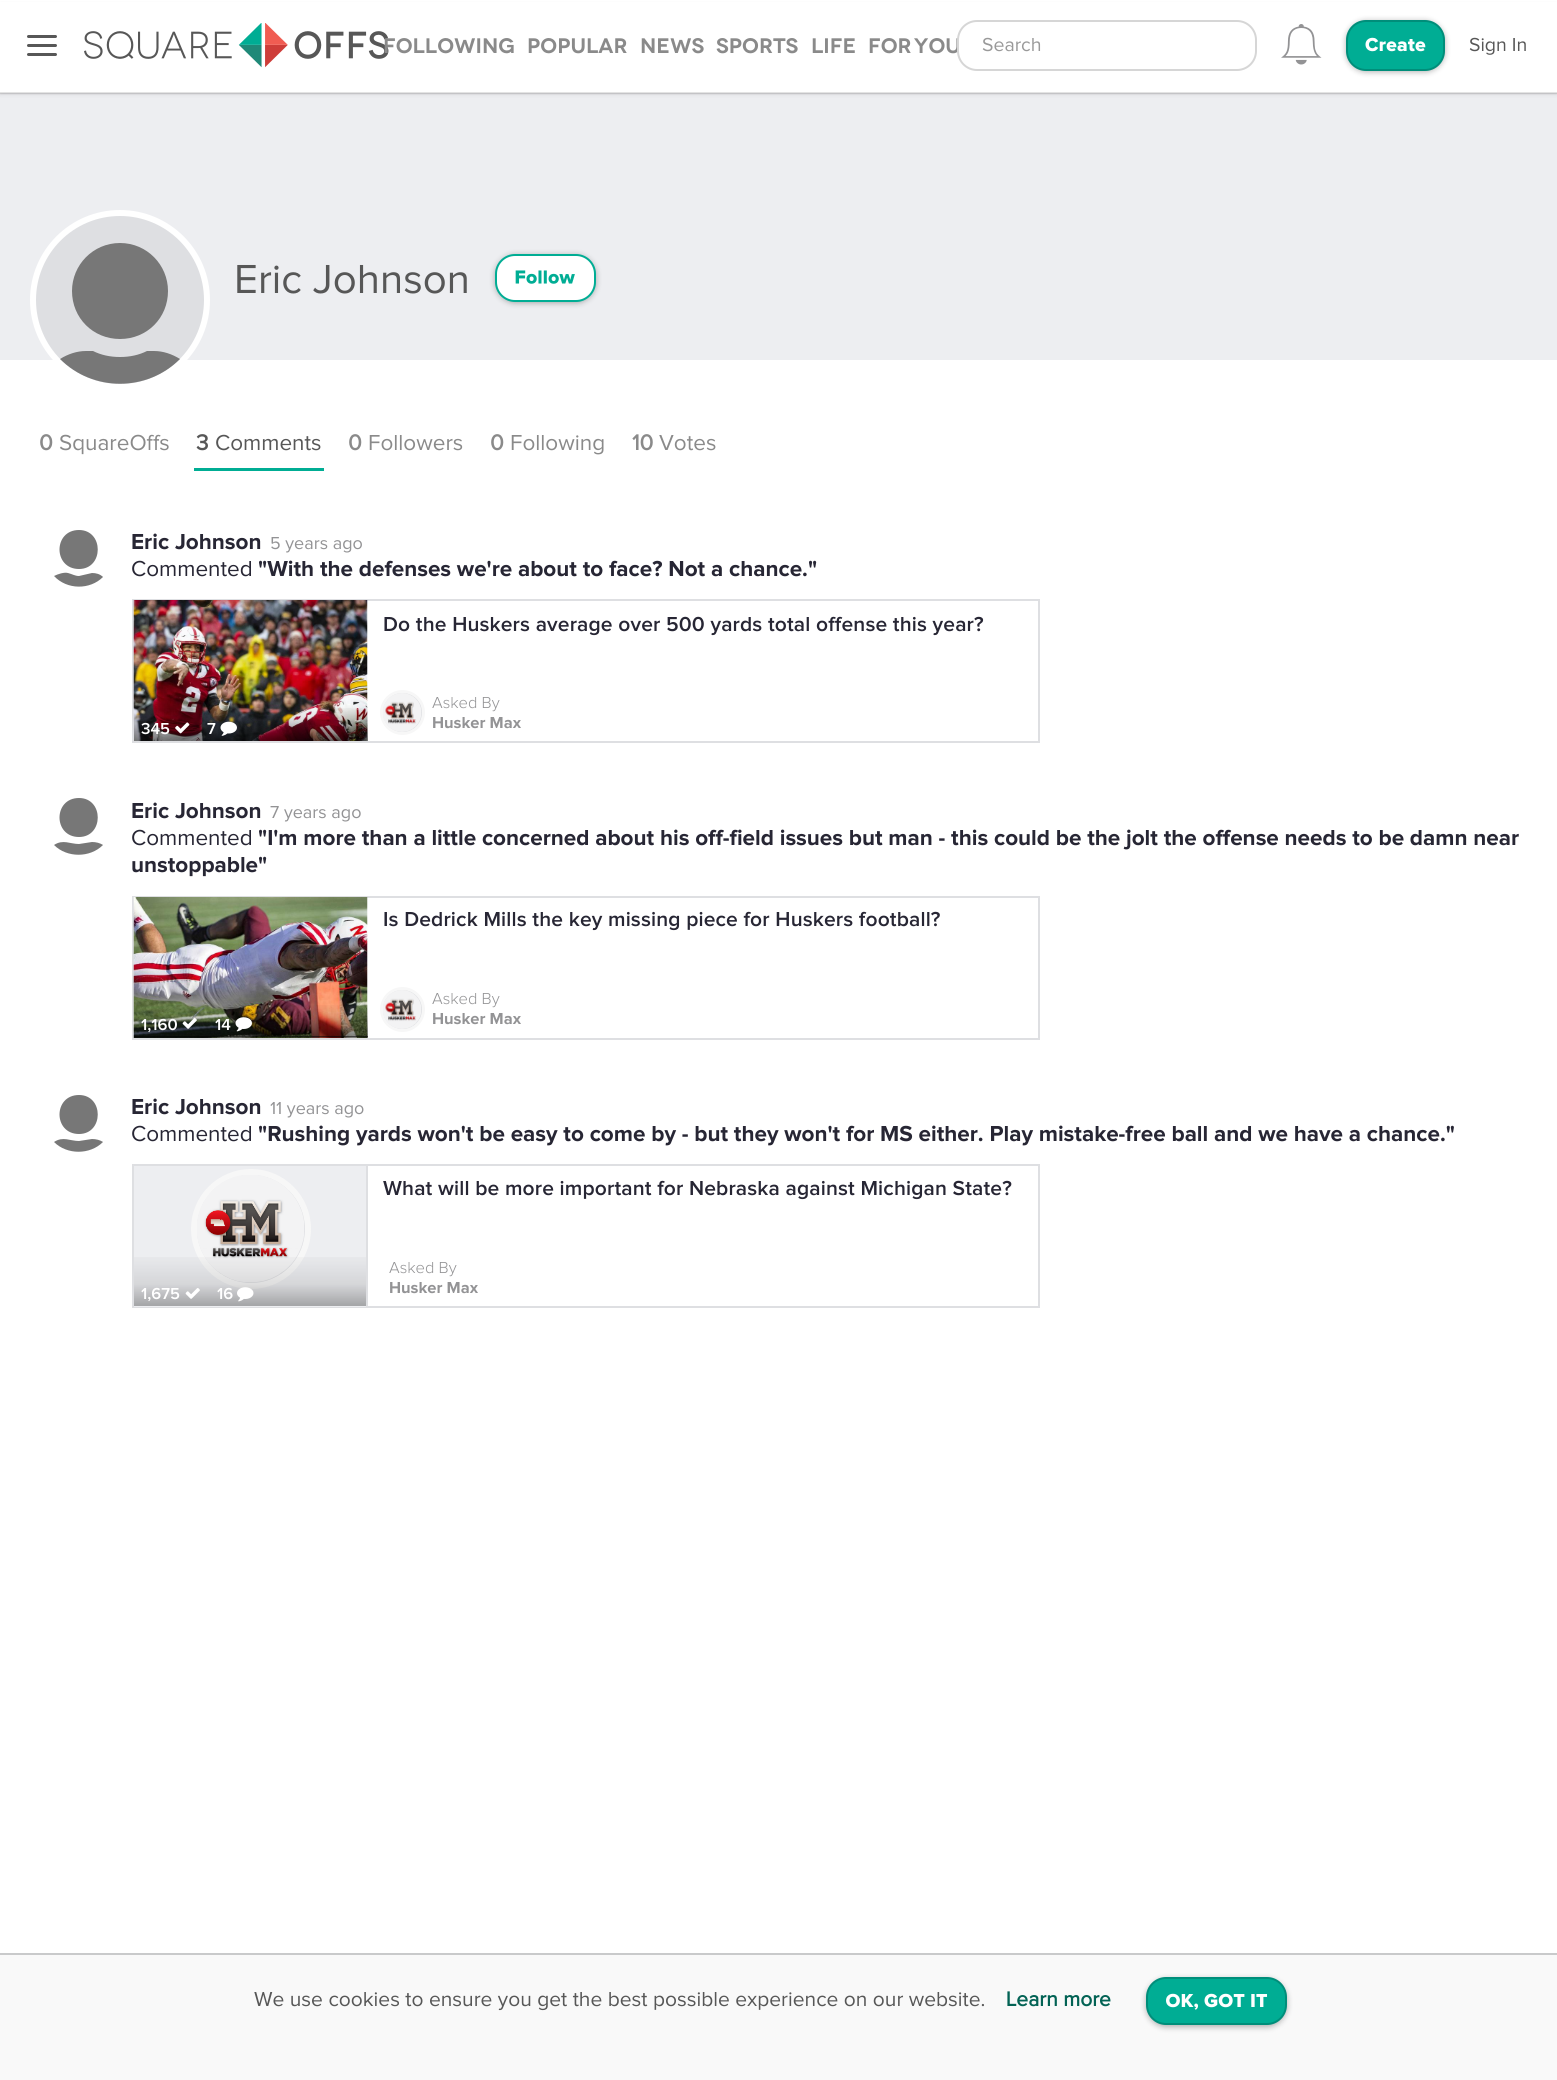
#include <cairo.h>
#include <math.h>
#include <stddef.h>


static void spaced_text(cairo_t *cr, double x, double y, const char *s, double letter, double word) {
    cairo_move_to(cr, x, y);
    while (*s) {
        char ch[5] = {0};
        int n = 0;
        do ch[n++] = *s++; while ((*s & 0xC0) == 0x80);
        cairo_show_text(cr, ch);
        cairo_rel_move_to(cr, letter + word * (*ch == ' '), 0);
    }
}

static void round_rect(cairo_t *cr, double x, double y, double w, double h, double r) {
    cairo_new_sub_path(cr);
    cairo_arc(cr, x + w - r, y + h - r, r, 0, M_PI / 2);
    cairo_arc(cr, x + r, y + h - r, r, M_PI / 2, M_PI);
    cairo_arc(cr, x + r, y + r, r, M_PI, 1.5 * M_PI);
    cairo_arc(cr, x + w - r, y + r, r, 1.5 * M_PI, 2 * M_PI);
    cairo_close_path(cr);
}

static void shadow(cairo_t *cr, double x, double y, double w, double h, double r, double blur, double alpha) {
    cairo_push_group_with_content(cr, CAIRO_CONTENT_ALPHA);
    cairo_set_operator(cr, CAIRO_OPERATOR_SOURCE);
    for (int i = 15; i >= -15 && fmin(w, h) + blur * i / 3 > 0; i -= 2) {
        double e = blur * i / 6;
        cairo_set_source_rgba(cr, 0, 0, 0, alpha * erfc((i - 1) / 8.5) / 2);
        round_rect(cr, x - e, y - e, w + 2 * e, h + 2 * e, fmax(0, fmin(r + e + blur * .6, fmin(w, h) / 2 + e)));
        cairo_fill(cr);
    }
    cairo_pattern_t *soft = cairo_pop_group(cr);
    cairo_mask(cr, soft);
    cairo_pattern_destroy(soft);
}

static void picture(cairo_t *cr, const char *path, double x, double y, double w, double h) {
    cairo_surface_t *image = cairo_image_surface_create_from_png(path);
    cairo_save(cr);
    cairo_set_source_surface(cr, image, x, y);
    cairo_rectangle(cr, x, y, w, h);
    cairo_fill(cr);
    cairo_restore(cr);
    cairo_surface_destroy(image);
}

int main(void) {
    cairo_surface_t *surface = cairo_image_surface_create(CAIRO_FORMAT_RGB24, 1557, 2080);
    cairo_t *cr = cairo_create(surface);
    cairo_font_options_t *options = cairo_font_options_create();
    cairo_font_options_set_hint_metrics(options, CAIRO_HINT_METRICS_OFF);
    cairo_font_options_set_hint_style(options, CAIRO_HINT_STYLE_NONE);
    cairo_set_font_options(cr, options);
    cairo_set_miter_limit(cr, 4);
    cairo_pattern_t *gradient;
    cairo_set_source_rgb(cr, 1, 1, 1);
    cairo_paint(cr);
    cairo_set_source_rgb(cr, 0.894, 0.894, 0.906);
    cairo_rectangle(cr, 0, 93, 1557, 2);
    cairo_fill(cr);
    cairo_set_source_rgb(cr, 0.929, 0.933, 0.945);
    cairo_rectangle(cr, 0, 95, 1557, 265);
    cairo_fill(cr);
    cairo_set_source_rgb(cr, 0, 0, 0);
    shadow(cr, 0, 3, 1557, 93, 0, 1.5, 0.04);
    cairo_set_source_rgb(cr, 1, 1, 1);
    cairo_rectangle(cr, 0, 2, 1557, 91);
    cairo_fill(cr);
    cairo_set_source_rgb(cr, 0.341, 0.341, 0.341);
    round_rect(cr, 27, 44, 30, 3, 1.5);
    cairo_fill(cr);
    round_rect(cr, 27, 35, 30, 3, 1.5);
    cairo_fill(cr);
    round_rect(cr, 27, 53, 30, 3, 1.5);
    cairo_fill(cr);
    cairo_set_source_rgba(cr, 0, 0, 0, 0.11);
    cairo_rectangle(cr, 0, 92, 1557, 2);
    cairo_fill(cr);
    picture(cr, "img1.png", 84, 23, 305, 45);
    cairo_select_font_face(cr, "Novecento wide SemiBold", CAIRO_FONT_SLANT_NORMAL, CAIRO_FONT_WEIGHT_NORMAL);
    cairo_set_font_size(cr, 21);
    cairo_set_source_rgb(cr, 0.541, 0.541, 0.541);
    cairo_move_to(cr, 383, 53);
    cairo_show_text(cr, "Following");
    cairo_move_to(cr, 527, 53);
    cairo_show_text(cr, "Popular");
    cairo_move_to(cr, 640, 53);
    cairo_show_text(cr, "News");
    cairo_move_to(cr, 716, 53);
    cairo_show_text(cr, "Sports");
    cairo_move_to(cr, 811, 53);
    cairo_show_text(cr, "Life");
    spaced_text(cr, 868, 53, "For you", 0, -3);
    cairo_set_source_rgb(cr, 1, 1, 1);
    round_rect(cr, 958, 21, 298, 49, 19);
    cairo_fill_preserve(cr);
    cairo_set_source_rgb(cr, 0.839, 0.839, 0.839);
    cairo_stroke(cr);
    cairo_select_font_face(cr, "Proxima Nova", CAIRO_FONT_SLANT_NORMAL, CAIRO_FONT_WEIGHT_NORMAL);
    cairo_set_font_size(cr, 19.5);
    cairo_set_source_rgb(cr, 0.6, 0.6, 0.6);
    cairo_move_to(cr, 982, 51);
    cairo_show_text(cr, "Search");
    picture(cr, "img2.png", 1281, 24, 41, 41);
    cairo_set_source_rgb(cr, 0, 0, 0);
    shadow(cr, 1346, 21, 99, 51, 20, 3, 0.3);
    cairo_set_source_rgb(cr, 0, 0.678, 0.58);
    round_rect(cr, 1347, 21, 97, 49, 19);
    cairo_fill_preserve(cr);
    cairo_set_source_rgb(cr, 0, 0.557, 0.478);
    cairo_stroke(cr);
    picture(cr, "img3.png", 1365, 37, 61, 15);
    cairo_set_source_rgb(cr, 0.341, 0.341, 0.341);
    cairo_move_to(cr, 1469, 51);
    cairo_show_text(cr, "Sign In");
    cairo_set_source_rgb(cr, 0.871, 0.875, 0.886);
    cairo_new_path(cr);
    cairo_arc(cr, 120, 300, 87, 0, 2 * M_PI);
    cairo_fill_preserve(cr);
    cairo_set_source_rgb(cr, 1, 1, 1);
    cairo_set_line_width(cr, 6);
    cairo_stroke(cr);
    cairo_set_source_rgb(cr, 0.467, 0.467, 0.467);
    cairo_set_fill_rule(cr, CAIRO_FILL_RULE_EVEN_ODD);
    cairo_new_path(cr);
    cairo_move_to(cr, 154, 351);
    cairo_curve_to(cr, 163, 351, 172, 354, 180, 359);
    cairo_curve_to(cr, 147, 392, 93, 392, 60, 359);
    cairo_curve_to(cr, 68, 354, 77, 351, 86, 351);
    cairo_line_to(cr, 93, 351);
    cairo_curve_to(cr, 101, 355, 110, 357, 120, 357);
    cairo_curve_to(cr, 130, 357, 139, 355, 147, 351);
    cairo_close_path(cr);
    cairo_move_to(cr, 120, 339);
    cairo_curve_to(cr, 93, 339, 72, 318, 72, 291);
    cairo_curve_to(cr, 72, 265, 93, 243, 120, 243);
    cairo_curve_to(cr, 147, 243, 168, 265, 168, 291);
    cairo_curve_to(cr, 168, 318, 147, 339, 120, 339);
    cairo_close_path(cr);
    cairo_fill(cr);
    cairo_set_font_size(cr, 42);
    cairo_set_source_rgb(cr, 0.341, 0.341, 0.341);
    cairo_move_to(cr, 234, 293);
    cairo_show_text(cr, "Eric Johnson");
    cairo_set_source_rgb(cr, 0, 0, 0);
    shadow(cr, 495, 255, 101, 48, 20, 3, 0.3);
    cairo_set_source_rgb(cr, 1, 1, 1);
    round_rect(cr, 496, 255, 99, 46, 19);
    cairo_fill_preserve(cr);
    cairo_set_source_rgb(cr, 0, 0.678, 0.58);
    cairo_set_line_width(cr, 2);
    cairo_stroke(cr);
    picture(cr, "img4.png", 515, 270, 60, 14);
    cairo_select_font_face(cr, "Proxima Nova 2", CAIRO_FONT_SLANT_NORMAL, CAIRO_FONT_WEIGHT_BOLD);
    cairo_set_font_size(cr, 22.5);
    cairo_set_source_rgb(cr, 0.541, 0.541, 0.541);
    cairo_move_to(cr, 39, 450);
    cairo_show_text(cr, "0");
    cairo_select_font_face(cr, "Proxima Nova", CAIRO_FONT_SLANT_NORMAL, CAIRO_FONT_WEIGHT_NORMAL);
    cairo_move_to(cr, 59, 450);
    cairo_show_text(cr, "SquareOffs");
    cairo_set_source_rgb(cr, 0, 0.678, 0.58);
    cairo_rectangle(cr, 194, 468, 130, 3);
    cairo_fill(cr);
    cairo_select_font_face(cr, "Proxima Nova 2", CAIRO_FONT_SLANT_NORMAL, CAIRO_FONT_WEIGHT_BOLD);
    cairo_set_source_rgb(cr, 0.341, 0.341, 0.341);
    cairo_move_to(cr, 196, 450);
    cairo_show_text(cr, "3");
    cairo_select_font_face(cr, "Proxima Nova", CAIRO_FONT_SLANT_NORMAL, CAIRO_FONT_WEIGHT_NORMAL);
    cairo_move_to(cr, 215, 450);
    cairo_show_text(cr, "Comments");
    cairo_select_font_face(cr, "Proxima Nova 2", CAIRO_FONT_SLANT_NORMAL, CAIRO_FONT_WEIGHT_BOLD);
    cairo_set_source_rgb(cr, 0.541, 0.541, 0.541);
    cairo_move_to(cr, 348, 450);
    cairo_show_text(cr, "0");
    cairo_select_font_face(cr, "Proxima Nova", CAIRO_FONT_SLANT_NORMAL, CAIRO_FONT_WEIGHT_NORMAL);
    cairo_move_to(cr, 368, 450);
    cairo_show_text(cr, "Followers");
    cairo_select_font_face(cr, "Proxima Nova 2", CAIRO_FONT_SLANT_NORMAL, CAIRO_FONT_WEIGHT_BOLD);
    cairo_move_to(cr, 490, 450);
    cairo_show_text(cr, "0");
    cairo_select_font_face(cr, "Proxima Nova", CAIRO_FONT_SLANT_NORMAL, CAIRO_FONT_WEIGHT_NORMAL);
    cairo_move_to(cr, 510, 450);
    cairo_show_text(cr, "Following");
    cairo_select_font_face(cr, "Proxima Nova 2", CAIRO_FONT_SLANT_NORMAL, CAIRO_FONT_WEIGHT_BOLD);
    cairo_move_to(cr, 632, 450);
    cairo_show_text(cr, "10");
    cairo_select_font_face(cr, "Proxima Nova", CAIRO_FONT_SLANT_NORMAL, CAIRO_FONT_WEIGHT_NORMAL);
    cairo_move_to(cr, 659, 450);
    cairo_show_text(cr, "Votes");
    cairo_set_source_rgb(cr, 0.467, 0.467, 0.467);
    cairo_new_path(cr);
    cairo_move_to(cr, 92, 573);
    cairo_curve_to(cr, 96, 573, 100, 574, 103, 577);
    cairo_curve_to(cr, 90, 590, 67, 590, 54, 576);
    cairo_curve_to(cr, 58, 574, 64, 572, 68, 573);
    cairo_curve_to(cr, 72, 574, 75, 576, 79, 576);
    cairo_close_path(cr);
    cairo_move_to(cr, 79, 569);
    cairo_curve_to(cr, 53, 569, 53, 530, 79, 530);
    cairo_curve_to(cr, 104, 530, 104, 569, 79, 569);
    cairo_close_path(cr);
    cairo_fill(cr);
    cairo_select_font_face(cr, "Proxima Nova", CAIRO_FONT_SLANT_NORMAL, CAIRO_FONT_WEIGHT_BOLD);
    cairo_set_source_rgb(cr, 0.153, 0.149, 0.204);
    cairo_move_to(cr, 131, 549);
    cairo_show_text(cr, "Eric Johnson");
    cairo_select_font_face(cr, "Proxima Nova", CAIRO_FONT_SLANT_NORMAL, CAIRO_FONT_WEIGHT_NORMAL);
    cairo_set_font_size(cr, 18);
    cairo_set_source_rgb(cr, 0.576, 0.576, 0.584);
    cairo_move_to(cr, 270, 549);
    cairo_show_text(cr, "5 years ago");
    cairo_set_font_size(cr, 22.5);
    cairo_set_source_rgb(cr, 0.153, 0.149, 0.204);
    cairo_move_to(cr, 131, 576);
    cairo_show_text(cr, "Commented");
    cairo_select_font_face(cr, "Proxima Nova", CAIRO_FONT_SLANT_NORMAL, CAIRO_FONT_WEIGHT_BOLD);
    cairo_move_to(cr, 258, 576);
    cairo_show_text(cr, "\"With the defenses we're about to face? Not a chance.\"");
    cairo_rectangle(cr, 133, 600, 906, 142);
    cairo_set_source_rgb(cr, 0.871, 0.875, 0.886);
    cairo_stroke(cr);
    cairo_select_font_face(cr, "Proxima Nova SemiBold", CAIRO_FONT_SLANT_NORMAL, CAIRO_FONT_WEIGHT_NORMAL);
    cairo_set_font_size(cr, 21);
    cairo_set_source_rgb(cr, 0.153, 0.149, 0.204);
    spaced_text(cr, 383, 631, "Do the Huskers average over 500 yards total offense this year?", 0.15, 0);
    picture(cr, "img5.png", 133, 600, 235, 141);
    gradient = cairo_pattern_create_linear(251, 600, 251, 740);
    cairo_pattern_add_color_stop_rgba(gradient, 0, 0, 0, 0, 0);
    cairo_pattern_add_color_stop_rgba(gradient, 0.75, 0, 0, 0, 0);
    cairo_pattern_add_color_stop_rgba(gradient, 0.85, 0, 0, 0, 0.1);
    cairo_pattern_add_color_stop_rgba(gradient, 1, 0, 0, 0, 0.5);
    cairo_set_source(cr, gradient);
    cairo_pattern_destroy(gradient);
    cairo_rectangle(cr, 134, 708, 234, 32);
    cairo_fill(cr);
    cairo_save(cr);
    cairo_set_fill_rule(cr, CAIRO_FILL_RULE_WINDING);
    cairo_rectangle(cr, 134, 600, 234, 141);
    cairo_clip(cr);
    cairo_set_source_rgba(cr, 0, 0, 0, 0.5);
    cairo_new_path(cr);
    cairo_move_to(cr, 369, 741);
    cairo_line_to(cr, 132, 741);
    cairo_line_to(cr, 134, 740);
    cairo_line_to(cr, 368, 740);
    cairo_close_path(cr);
    cairo_fill(cr);
    cairo_restore(cr);
    cairo_set_font_size(cr, 16.5);
    cairo_set_source_rgb(cr, 1, 1, 1);
    cairo_move_to(cr, 141, 734);
    cairo_show_text(cr, "345");
    picture(cr, "img6.png", 175, 722, 15, 12);
    cairo_move_to(cr, 207, 734);
    cairo_show_text(cr, "7");
    picture(cr, "img7.png", 220, 721, 17, 15);
    cairo_set_source_rgb(cr, 0.871, 0.875, 0.886);
    cairo_arc(cr, 402.5, 712.5, 21, 0, 2 * M_PI);
    cairo_fill_preserve(cr);
    cairo_set_source_rgb(cr, 0.965, 0.965, 0.965);
    cairo_set_line_width(cr, 3);
    cairo_stroke(cr);
    picture(cr, "img8.png", 383, 693, 39, 39);
    cairo_select_font_face(cr, "Proxima Nova Light", CAIRO_FONT_SLANT_NORMAL, CAIRO_FONT_WEIGHT_NORMAL);
    cairo_set_source_rgb(cr, 0.576, 0.576, 0.584);
    cairo_move_to(cr, 432, 708);
    cairo_show_text(cr, "Asked By");
    cairo_select_font_face(cr, "Proxima Nova", CAIRO_FONT_SLANT_NORMAL, CAIRO_FONT_WEIGHT_BOLD);
    cairo_move_to(cr, 432, 728);
    cairo_show_text(cr, "Husker Max");
    cairo_set_source_rgb(cr, 0.467, 0.467, 0.467);
    cairo_new_path(cr);
    cairo_move_to(cr, 92, 842);
    cairo_curve_to(cr, 96, 842, 100, 843, 103, 845);
    cairo_curve_to(cr, 90, 858, 67, 858, 54, 845);
    cairo_curve_to(cr, 63, 839, 70, 844, 79, 844);
    cairo_close_path(cr);
    cairo_move_to(cr, 79, 837);
    cairo_curve_to(cr, 53, 837, 53, 798, 79, 798);
    cairo_curve_to(cr, 104, 798, 104, 837, 79, 837);
    cairo_close_path(cr);
    cairo_fill(cr);
    cairo_set_font_size(cr, 22.5);
    cairo_set_source_rgb(cr, 0.153, 0.149, 0.204);
    cairo_move_to(cr, 131, 818);
    cairo_show_text(cr, "Eric Johnson");
    cairo_select_font_face(cr, "Proxima Nova", CAIRO_FONT_SLANT_NORMAL, CAIRO_FONT_WEIGHT_NORMAL);
    cairo_set_font_size(cr, 18);
    cairo_set_source_rgb(cr, 0.576, 0.576, 0.584);
    cairo_move_to(cr, 270, 818);
    cairo_show_text(cr, "7 years ago");
    cairo_set_font_size(cr, 22.5);
    cairo_set_source_rgb(cr, 0.153, 0.149, 0.204);
    cairo_move_to(cr, 131, 845);
    cairo_show_text(cr, "Commented");
    cairo_select_font_face(cr, "Proxima Nova", CAIRO_FONT_SLANT_NORMAL, CAIRO_FONT_WEIGHT_BOLD);
    cairo_move_to(cr, 258, 845);
    cairo_show_text(cr, "\"I'm more than a little concerned about his off-field issues but man - this could be the jolt the offense needs to be damn near");
    cairo_move_to(cr, 131, 872);
    cairo_show_text(cr, "unstoppable\"");
    cairo_rectangle(cr, 133, 897, 906, 142);
    cairo_set_source_rgb(cr, 0.871, 0.875, 0.886);
    cairo_set_line_width(cr, 2);
    cairo_stroke(cr);
    cairo_select_font_face(cr, "Proxima Nova SemiBold", CAIRO_FONT_SLANT_NORMAL, CAIRO_FONT_WEIGHT_NORMAL);
    cairo_set_font_size(cr, 21);
    cairo_set_source_rgb(cr, 0.153, 0.149, 0.204);
    spaced_text(cr, 383, 926, "Is Dedrick Mills the key missing piece for Huskers football?", 0.15, 0);
    picture(cr, "img9.png", 133, 897, 235, 141);
    gradient = cairo_pattern_create_linear(251, 897, 251, 1037);
    cairo_pattern_add_color_stop_rgba(gradient, 0, 0, 0, 0, 0);
    cairo_pattern_add_color_stop_rgba(gradient, 0.75, 0, 0, 0, 0);
    cairo_pattern_add_color_stop_rgba(gradient, 0.85, 0, 0, 0, 0.1);
    cairo_pattern_add_color_stop_rgba(gradient, 1, 0, 0, 0, 0.5);
    cairo_set_source(cr, gradient);
    cairo_pattern_destroy(gradient);
    cairo_rectangle(cr, 134, 1005, 234, 32);
    cairo_fill(cr);
    cairo_save(cr);
    cairo_set_fill_rule(cr, CAIRO_FILL_RULE_WINDING);
    cairo_rectangle(cr, 134, 897, 234, 141);
    cairo_clip(cr);
    cairo_set_source_rgba(cr, 0, 0, 0, 0.5);
    cairo_new_path(cr);
    cairo_move_to(cr, 369, 1038);
    cairo_line_to(cr, 132, 1038);
    cairo_line_to(cr, 134, 1036);
    cairo_line_to(cr, 368, 1036);
    cairo_close_path(cr);
    cairo_fill(cr);
    cairo_restore(cr);
    cairo_set_font_size(cr, 16.5);
    cairo_set_source_rgb(cr, 1, 1, 1);
    cairo_move_to(cr, 141, 1030);
    cairo_show_text(cr, "1,160");
    picture(cr, "img10.png", 182, 1018, 15, 11);
    cairo_move_to(cr, 215, 1030);
    cairo_show_text(cr, "14");
    picture(cr, "img11.png", 235, 1017, 17, 15);
    cairo_set_source_rgb(cr, 0.871, 0.875, 0.886);
    cairo_arc(cr, 402.5, 1009.5, 21, 0, 2 * M_PI);
    cairo_fill_preserve(cr);
    cairo_set_source_rgb(cr, 0.965, 0.965, 0.965);
    cairo_set_line_width(cr, 3);
    cairo_stroke(cr);
    picture(cr, "img12.png", 383, 990, 39, 39);
    cairo_select_font_face(cr, "Proxima Nova Light", CAIRO_FONT_SLANT_NORMAL, CAIRO_FONT_WEIGHT_NORMAL);
    cairo_set_source_rgb(cr, 0.576, 0.576, 0.584);
    cairo_move_to(cr, 432, 1004);
    cairo_show_text(cr, "Asked By");
    cairo_select_font_face(cr, "Proxima Nova", CAIRO_FONT_SLANT_NORMAL, CAIRO_FONT_WEIGHT_BOLD);
    cairo_move_to(cr, 432, 1024);
    cairo_show_text(cr, "Husker Max");
    cairo_set_source_rgb(cr, 0.467, 0.467, 0.467);
    cairo_new_path(cr);
    cairo_move_to(cr, 92, 1139);
    cairo_curve_to(cr, 96, 1139, 100, 1140, 103, 1142);
    cairo_curve_to(cr, 90, 1155, 67, 1155, 54, 1142);
    cairo_curve_to(cr, 63, 1136, 70, 1141, 79, 1141);
    cairo_close_path(cr);
    cairo_move_to(cr, 79, 1134);
    cairo_curve_to(cr, 53, 1134, 53, 1095, 79, 1095);
    cairo_curve_to(cr, 104, 1095, 104, 1134, 79, 1134);
    cairo_close_path(cr);
    cairo_fill(cr);
    cairo_set_font_size(cr, 22.5);
    cairo_set_source_rgb(cr, 0.153, 0.149, 0.204);
    cairo_move_to(cr, 131, 1114);
    cairo_show_text(cr, "Eric Johnson");
    cairo_select_font_face(cr, "Proxima Nova", CAIRO_FONT_SLANT_NORMAL, CAIRO_FONT_WEIGHT_NORMAL);
    cairo_set_font_size(cr, 18);
    cairo_set_source_rgb(cr, 0.576, 0.576, 0.584);
    cairo_move_to(cr, 270, 1114);
    cairo_show_text(cr, "11 years ago");
    cairo_set_font_size(cr, 22.5);
    cairo_set_source_rgb(cr, 0.153, 0.149, 0.204);
    cairo_move_to(cr, 131, 1141);
    cairo_show_text(cr, "Commented");
    cairo_select_font_face(cr, "Proxima Nova", CAIRO_FONT_SLANT_NORMAL, CAIRO_FONT_WEIGHT_BOLD);
    cairo_move_to(cr, 258, 1141);
    cairo_show_text(cr, "\"Rushing yards won't be easy to come by - but they won't for MS either. Play mistake-free ball and we have a chance.\"");
    cairo_rectangle(cr, 133, 1165, 906, 142);
    cairo_set_source_rgb(cr, 0.871, 0.875, 0.886);
    cairo_set_line_width(cr, 2);
    cairo_stroke(cr);
    cairo_select_font_face(cr, "Proxima Nova SemiBold", CAIRO_FONT_SLANT_NORMAL, CAIRO_FONT_WEIGHT_NORMAL);
    cairo_set_font_size(cr, 21);
    cairo_set_source_rgb(cr, 0.153, 0.149, 0.204);
    spaced_text(cr, 383, 1195, "What will be more important for Nebraska against Michigan State?", 0.15, 0);
    cairo_set_source_rgb(cr, 0.929, 0.933, 0.945);
    cairo_rectangle(cr, 134, 1166, 232, 141);
    cairo_fill(cr);
    cairo_set_source_rgb(cr, 0.871, 0.875, 0.886);
    cairo_rectangle(cr, 366, 1166, 2, 141);
    cairo_fill(cr);
    cairo_arc(cr, 251, 1229, 57, 0, 2 * M_PI);
    cairo_fill_preserve(cr);
    cairo_set_source_rgb(cr, 0.965, 0.965, 0.965);
    cairo_set_line_width(cr, 6);
    cairo_stroke(cr);
    picture(cr, "img13.png", 197, 1175, 108, 108);
    gradient = cairo_pattern_create_linear(250, 1166, 250, 1305);
    cairo_pattern_add_color_stop_rgba(gradient, 0, 0, 0, 0, 0);
    cairo_pattern_add_color_stop_rgba(gradient, 0.6, 0, 0, 0, 0);
    cairo_pattern_add_color_stop_rgba(gradient, 0.85, 0, 0, 0, 0.1);
    cairo_pattern_add_color_stop_rgba(gradient, 1, 0, 0, 0, 0.3);
    cairo_set_source(cr, gradient);
    cairo_pattern_destroy(gradient);
    cairo_rectangle(cr, 134, 1257, 232, 48);
    cairo_fill(cr);
    cairo_save(cr);
    cairo_set_fill_rule(cr, CAIRO_FILL_RULE_WINDING);
    cairo_rectangle(cr, 134, 1166, 232, 141);
    cairo_clip(cr);
    cairo_set_source_rgb(cr, 0.651, 0.655, 0.663);
    cairo_new_path(cr);
    cairo_move_to(cr, 368, 1306);
    cairo_line_to(cr, 132, 1306);
    cairo_line_to(cr, 134, 1305);
    cairo_line_to(cr, 366, 1305);
    cairo_close_path(cr);
    cairo_fill(cr);
    cairo_restore(cr);
    cairo_set_font_size(cr, 16.5);
    cairo_set_source_rgb(cr, 1, 1, 1);
    cairo_move_to(cr, 141, 1299);
    cairo_show_text(cr, "1,675");
    picture(cr, "img14.png", 185, 1288, 15, 11);
    cairo_move_to(cr, 217, 1299);
    cairo_show_text(cr, "16");
    picture(cr, "img15.png", 237, 1287, 17, 15);
    cairo_select_font_face(cr, "Proxima Nova Light", CAIRO_FONT_SLANT_NORMAL, CAIRO_FONT_WEIGHT_NORMAL);
    cairo_set_source_rgb(cr, 0.576, 0.576, 0.584);
    cairo_move_to(cr, 389, 1273);
    cairo_show_text(cr, "Asked By");
    cairo_select_font_face(cr, "Proxima Nova", CAIRO_FONT_SLANT_NORMAL, CAIRO_FONT_WEIGHT_BOLD);
    cairo_move_to(cr, 389, 1293);
    cairo_show_text(cr, "Husker Max");
    cairo_set_source_rgb(cr, 0.973, 0.973, 0.973);
    cairo_rectangle(cr, 0, 1955, 1557, 125);
    cairo_fill(cr);
    cairo_set_source_rgb(cr, 0.788, 0.792, 0.796);
    cairo_rectangle(cr, 0, 1953, 1557, 2);
    cairo_fill(cr);
    cairo_select_font_face(cr, "Proxima Nova", CAIRO_FONT_SLANT_NORMAL, CAIRO_FONT_WEIGHT_NORMAL);
    cairo_set_font_size(cr, 21);
    cairo_set_source_rgb(cr, 0.341, 0.341, 0.341);
    cairo_move_to(cr, 254, 2006);
    cairo_show_text(cr, "We use cookies to ensure you get the best possible experience on our website.");
    cairo_select_font_face(cr, "Proxima Nova 2", CAIRO_FONT_SLANT_NORMAL, CAIRO_FONT_WEIGHT_BOLD);
    cairo_set_source_rgb(cr, 0.012, 0.388, 0.333);
    cairo_move_to(cr, 1006, 2006);
    cairo_show_text(cr, "Learn more");
    cairo_set_source_rgb(cr, 0, 0, 0);
    shadow(cr, 1146, 1979, 141, 48, 20, 3, 0.3);
    cairo_set_source_rgb(cr, 0, 0.678, 0.58);
    round_rect(cr, 1147, 1978, 139, 46, 19);
    cairo_fill_preserve(cr);
    cairo_set_source_rgb(cr, 0, 0.557, 0.478);
    cairo_set_line_width(cr, 2);
    cairo_stroke(cr);
    picture(cr, "img16.png", 1166, 1993, 102, 17);
    cairo_surface_write_to_png(surface, "page.png");
    cairo_font_options_destroy(options);
    cairo_destroy(cr);
    cairo_surface_destroy(surface);
    return 0;
}
